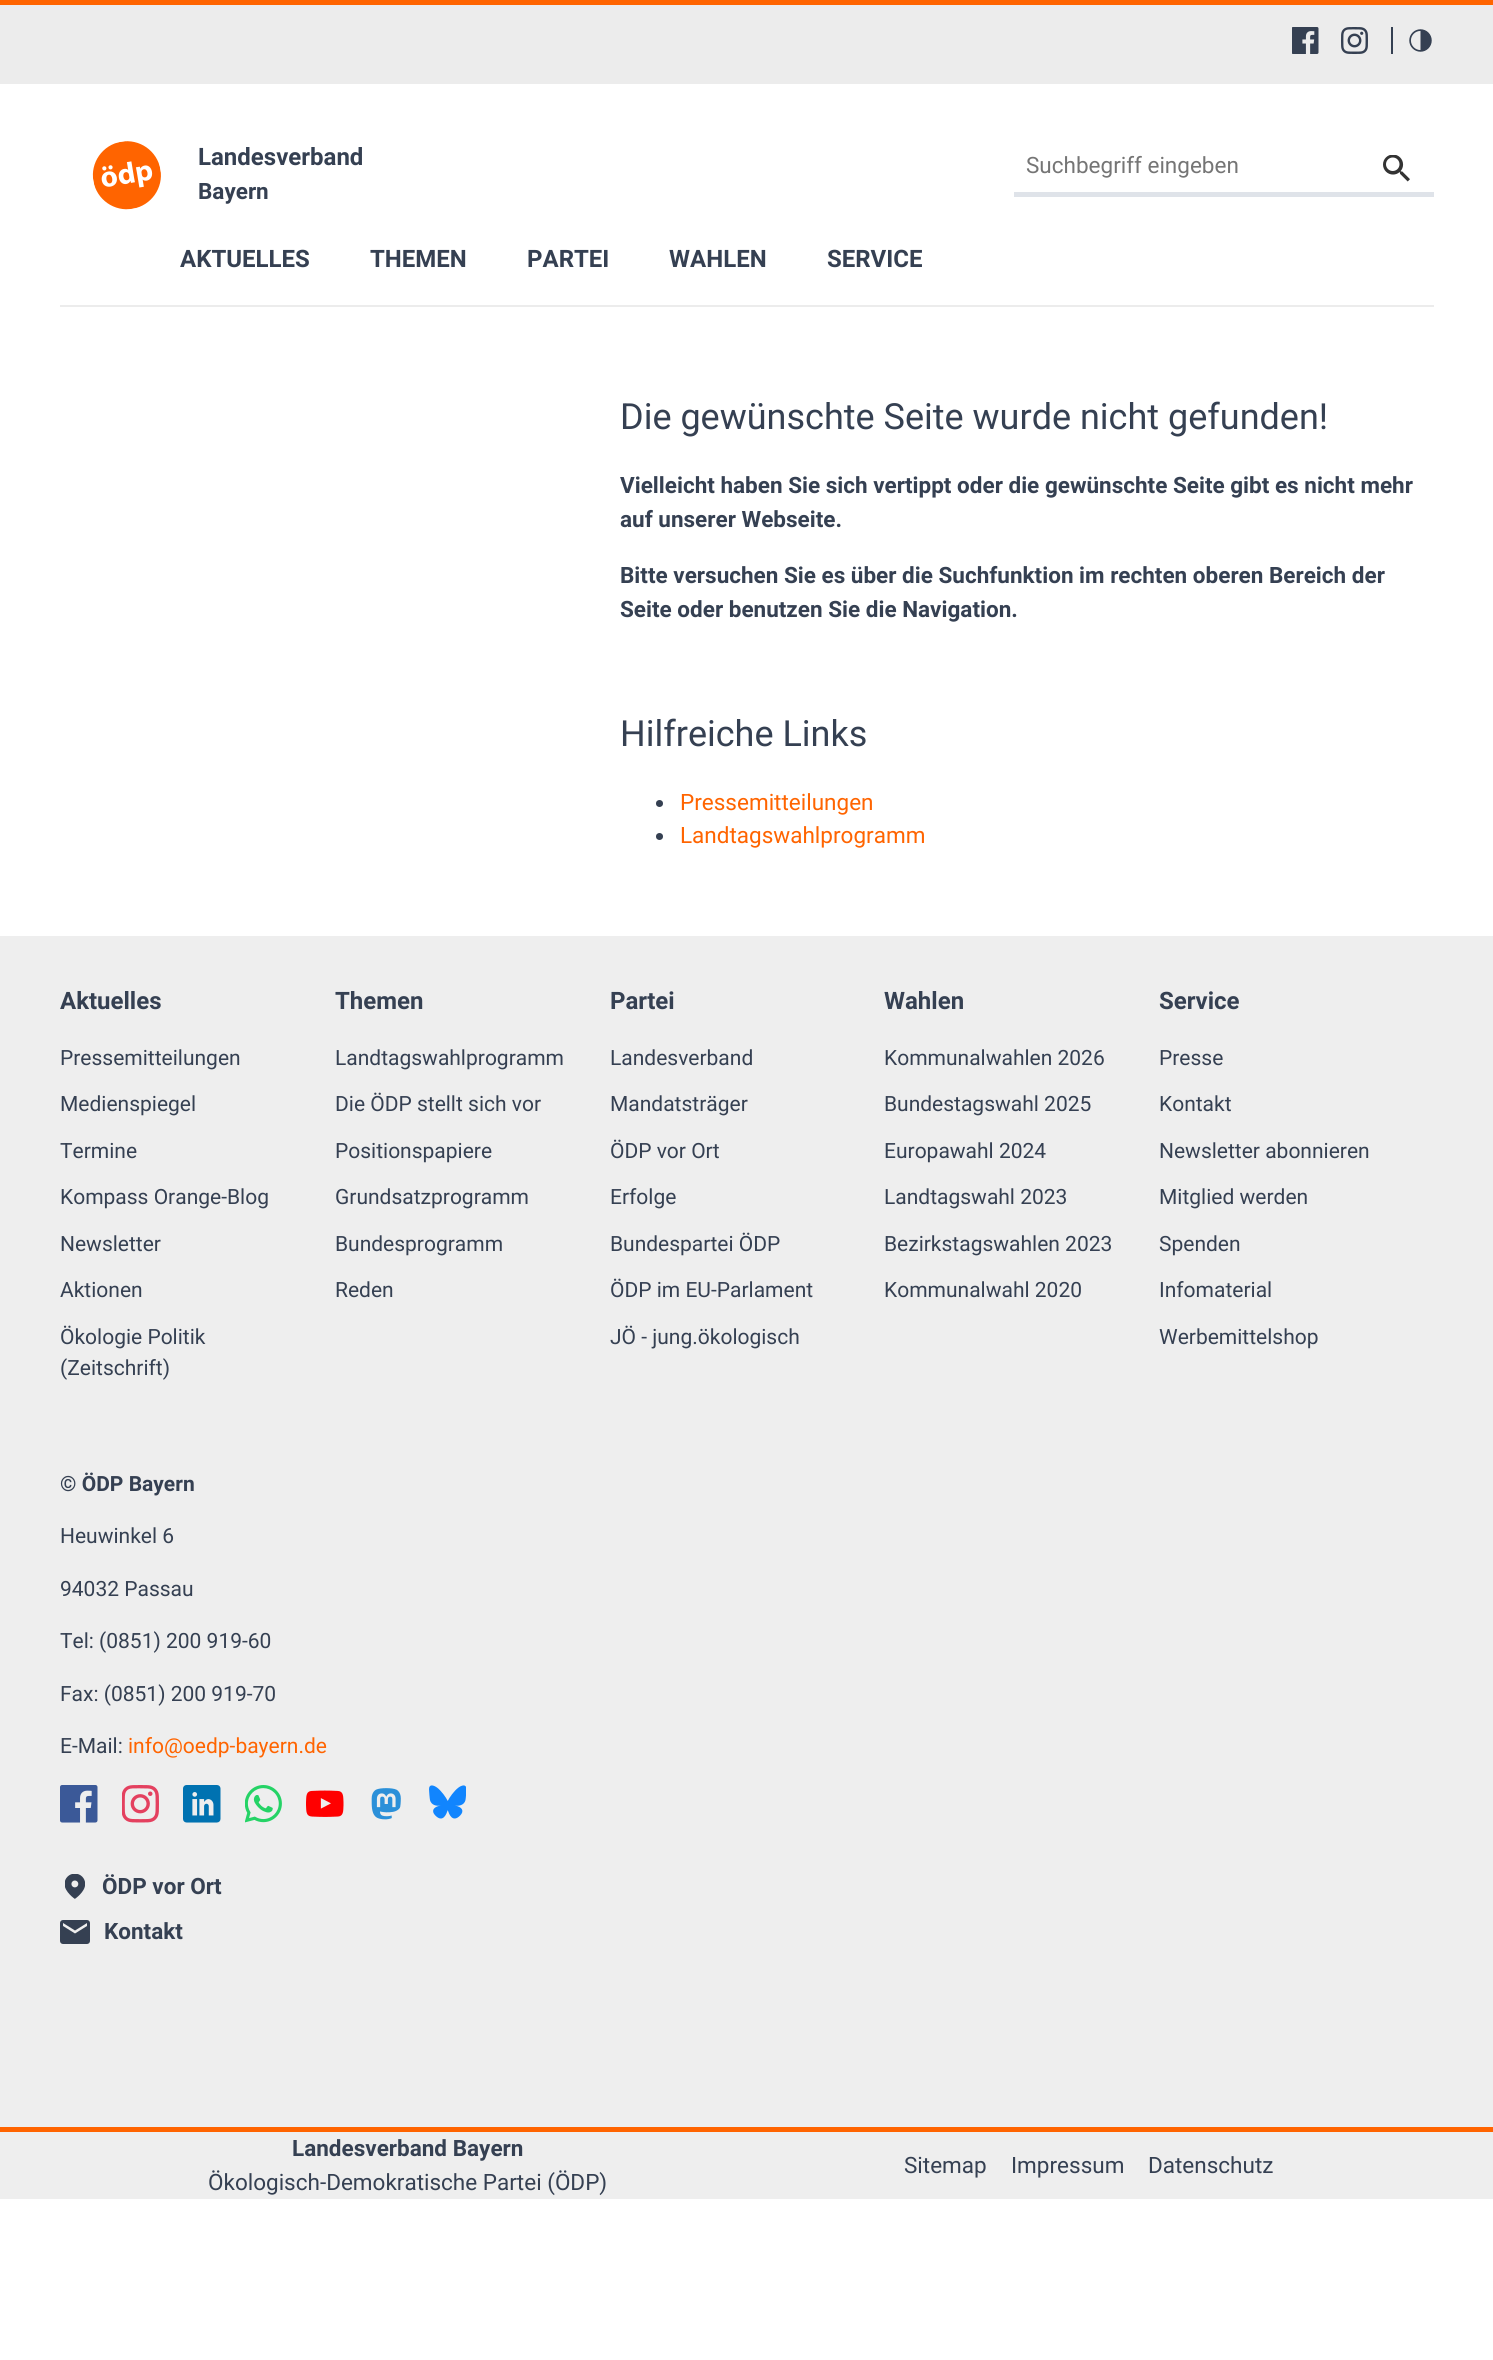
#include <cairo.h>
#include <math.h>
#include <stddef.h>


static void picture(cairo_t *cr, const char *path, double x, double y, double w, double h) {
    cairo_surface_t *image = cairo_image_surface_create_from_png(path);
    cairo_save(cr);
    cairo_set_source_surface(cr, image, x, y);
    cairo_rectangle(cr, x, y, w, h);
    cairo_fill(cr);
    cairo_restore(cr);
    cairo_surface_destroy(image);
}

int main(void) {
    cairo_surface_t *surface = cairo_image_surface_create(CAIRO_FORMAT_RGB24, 1493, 2360);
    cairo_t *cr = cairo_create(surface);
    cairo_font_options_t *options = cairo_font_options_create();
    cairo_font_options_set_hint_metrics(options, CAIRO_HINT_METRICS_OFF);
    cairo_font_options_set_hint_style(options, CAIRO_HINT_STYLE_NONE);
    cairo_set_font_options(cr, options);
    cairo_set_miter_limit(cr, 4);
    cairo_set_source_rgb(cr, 1, 1, 1);
    cairo_paint(cr);
    cairo_set_source_rgb(cr, 0.925, 0.925, 0.925);
    cairo_rectangle(cr, 0, 5, 1493, 79);
    cairo_fill(cr);
    cairo_set_source_rgb(cr, 1, 0.392, 0);
    cairo_rectangle(cr, 0, 0, 1493, 5);
    cairo_fill(cr);
    picture(cr, "img1.png", 1292, 27, 27, 27);
    picture(cr, "img2.png", 1341, 27, 27, 27);
    cairo_set_source_rgb(cr, 0.208, 0.251, 0.322);
    cairo_rectangle(cr, 1391, 27, 2, 27);
    cairo_fill(cr);
    picture(cr, "img3.png", 1409, 29, 23, 23);
    cairo_set_source_rgb(cr, 0.925, 0.925, 0.925);
    cairo_rectangle(cr, 60, 305, 1374, 2);
    cairo_fill(cr);
    picture(cr, "img4.png", 92, 141, 69, 69);
    cairo_select_font_face(cr, "Roboto", CAIRO_FONT_SLANT_NORMAL, CAIRO_FONT_WEIGHT_BOLD);
    cairo_set_font_size(cr, 24);
    cairo_set_source_rgb(cr, 0.208, 0.251, 0.322);
    cairo_move_to(cr, 198, 165);
    cairo_show_text(cr, "Landesverband");
    cairo_set_font_size(cr, 22.5);
    cairo_move_to(cr, 198, 199);
    cairo_show_text(cr, "Bayern");
    cairo_set_source_rgb(cr, 0.875, 0.89, 0.914);
    cairo_rectangle(cr, 1014, 192, 420, 5);
    cairo_fill(cr);
    cairo_select_font_face(cr, "Roboto", CAIRO_FONT_SLANT_NORMAL, CAIRO_FONT_WEIGHT_NORMAL);
    cairo_set_source_rgb(cr, 0.459, 0.459, 0.459);
    cairo_move_to(cr, 1026, 173);
    cairo_show_text(cr, "Suchbegriff eingeben");
    picture(cr, "img5.png", 1383, 155, 27, 27);
    cairo_select_font_face(cr, "Roboto", CAIRO_FONT_SLANT_NORMAL, CAIRO_FONT_WEIGHT_BOLD);
    cairo_set_font_size(cr, 24);
    cairo_set_source_rgb(cr, 0.208, 0.251, 0.322);
    cairo_move_to(cr, 180, 267);
    cairo_show_text(cr, "AKTUELLES");
    cairo_move_to(cr, 370, 267);
    cairo_show_text(cr, "THEMEN");
    cairo_move_to(cr, 527, 267);
    cairo_show_text(cr, "PARTEI");
    cairo_move_to(cr, 669, 267);
    cairo_show_text(cr, "WAHLEN");
    cairo_move_to(cr, 827, 267);
    cairo_show_text(cr, "SERVICE");
    cairo_select_font_face(cr, "Roboto", CAIRO_FONT_SLANT_NORMAL, CAIRO_FONT_WEIGHT_NORMAL);
    cairo_set_font_size(cr, 36);
    cairo_move_to(cr, 620, 429);
    cairo_show_text(cr, "Die gewünschte Seite wurde nicht gefunden!");
    cairo_select_font_face(cr, "Roboto", CAIRO_FONT_SLANT_NORMAL, CAIRO_FONT_WEIGHT_BOLD);
    cairo_set_font_size(cr, 22.5);
    cairo_move_to(cr, 620, 493);
    cairo_show_text(cr, "Vielleicht haben Sie sich vertippt oder die gewünschte Seite gibt es nicht mehr");
    cairo_move_to(cr, 620, 527);
    cairo_show_text(cr, "auf unserer Webseite.");
    cairo_move_to(cr, 620, 583);
    cairo_show_text(cr, "Bitte versuchen Sie es über die Suchfunktion im rechten oberen Bereich der");
    cairo_move_to(cr, 620, 617);
    cairo_show_text(cr, "Seite oder benutzen Sie die Navigation.");
    cairo_select_font_face(cr, "Roboto", CAIRO_FONT_SLANT_NORMAL, CAIRO_FONT_WEIGHT_NORMAL);
    cairo_set_font_size(cr, 36);
    cairo_move_to(cr, 620, 746);
    cairo_show_text(cr, "Hilfreiche Links");
    cairo_new_path(cr);
    cairo_arc(cr, 659.5, 803.5, 3.5, 0, 2 * M_PI);
    cairo_fill(cr);
    cairo_set_font_size(cr, 22.5);
    cairo_set_source_rgb(cr, 1, 0.392, 0);
    cairo_move_to(cr, 680, 810);
    cairo_show_text(cr, "Pressemitteilungen");
    cairo_set_source_rgb(cr, 0.208, 0.251, 0.322);
    cairo_new_path(cr);
    cairo_arc(cr, 659.5, 836.5, 3.5, 0, 2 * M_PI);
    cairo_fill(cr);
    cairo_set_source_rgb(cr, 1, 0.392, 0);
    cairo_move_to(cr, 680, 843);
    cairo_show_text(cr, "Landtagswahlprogramm");
    cairo_set_source_rgb(cr, 0.933, 0.933, 0.933);
    cairo_rectangle(cr, 0, 936, 1493, 1263);
    cairo_fill(cr);
    cairo_select_font_face(cr, "Roboto", CAIRO_FONT_SLANT_NORMAL, CAIRO_FONT_WEIGHT_BOLD);
    cairo_set_font_size(cr, 24);
    cairo_set_source_rgb(cr, 0.208, 0.251, 0.322);
    cairo_move_to(cr, 60, 1009);
    cairo_show_text(cr, "Aktuelles");
    cairo_select_font_face(cr, "Roboto", CAIRO_FONT_SLANT_NORMAL, CAIRO_FONT_WEIGHT_NORMAL);
    cairo_set_font_size(cr, 21);
    cairo_move_to(cr, 60, 1065);
    cairo_show_text(cr, "Pressemitteilungen");
    cairo_move_to(cr, 60, 1111);
    cairo_show_text(cr, "Medienspiegel");
    cairo_move_to(cr, 60, 1158);
    cairo_show_text(cr, "Termine");
    cairo_move_to(cr, 60, 1204);
    cairo_show_text(cr, "Kompass Orange-Blog");
    cairo_move_to(cr, 60, 1251);
    cairo_show_text(cr, "Newsletter");
    cairo_move_to(cr, 60, 1297);
    cairo_show_text(cr, "Aktionen");
    cairo_move_to(cr, 60, 1344);
    cairo_show_text(cr, "Ökologie Politik");
    cairo_move_to(cr, 60, 1375);
    cairo_show_text(cr, "(Zeitschrift)");
    cairo_select_font_face(cr, "Roboto", CAIRO_FONT_SLANT_NORMAL, CAIRO_FONT_WEIGHT_BOLD);
    cairo_set_font_size(cr, 24);
    cairo_move_to(cr, 335, 1009);
    cairo_show_text(cr, "Themen");
    cairo_select_font_face(cr, "Roboto", CAIRO_FONT_SLANT_NORMAL, CAIRO_FONT_WEIGHT_NORMAL);
    cairo_set_font_size(cr, 21);
    cairo_move_to(cr, 335, 1065);
    cairo_show_text(cr, "Landtagswahlprogramm");
    cairo_move_to(cr, 335, 1111);
    cairo_show_text(cr, "Die ÖDP stellt sich vor");
    cairo_move_to(cr, 335, 1158);
    cairo_show_text(cr, "Positionspapiere");
    cairo_move_to(cr, 335, 1204);
    cairo_show_text(cr, "Grundsatzprogramm");
    cairo_move_to(cr, 335, 1251);
    cairo_show_text(cr, "Bundesprogramm");
    cairo_move_to(cr, 335, 1297);
    cairo_show_text(cr, "Reden");
    cairo_select_font_face(cr, "Roboto", CAIRO_FONT_SLANT_NORMAL, CAIRO_FONT_WEIGHT_BOLD);
    cairo_set_font_size(cr, 24);
    cairo_move_to(cr, 610, 1009);
    cairo_show_text(cr, "Partei");
    cairo_select_font_face(cr, "Roboto", CAIRO_FONT_SLANT_NORMAL, CAIRO_FONT_WEIGHT_NORMAL);
    cairo_set_font_size(cr, 21);
    cairo_move_to(cr, 610, 1065);
    cairo_show_text(cr, "Landesverband");
    cairo_move_to(cr, 610, 1111);
    cairo_show_text(cr, "Mandatsträger");
    cairo_move_to(cr, 610, 1158);
    cairo_show_text(cr, "ÖDP vor Ort");
    cairo_move_to(cr, 610, 1204);
    cairo_show_text(cr, "Erfolge");
    cairo_move_to(cr, 610, 1251);
    cairo_show_text(cr, "Bundespartei ÖDP");
    cairo_move_to(cr, 610, 1297);
    cairo_show_text(cr, "ÖDP im EU-Parlament");
    cairo_move_to(cr, 610, 1344);
    cairo_show_text(cr, "JÖ - jung.ökologisch");
    cairo_select_font_face(cr, "Roboto", CAIRO_FONT_SLANT_NORMAL, CAIRO_FONT_WEIGHT_BOLD);
    cairo_set_font_size(cr, 24);
    cairo_move_to(cr, 884, 1009);
    cairo_show_text(cr, "Wahlen");
    cairo_select_font_face(cr, "Roboto", CAIRO_FONT_SLANT_NORMAL, CAIRO_FONT_WEIGHT_NORMAL);
    cairo_set_font_size(cr, 21);
    cairo_move_to(cr, 884, 1065);
    cairo_show_text(cr, "Kommunalwahlen 2026");
    cairo_move_to(cr, 884, 1111);
    cairo_show_text(cr, "Bundestagswahl 2025");
    cairo_move_to(cr, 884, 1158);
    cairo_show_text(cr, "Europawahl 2024");
    cairo_move_to(cr, 884, 1204);
    cairo_show_text(cr, "Landtagswahl 2023");
    cairo_move_to(cr, 884, 1251);
    cairo_show_text(cr, "Bezirkstagswahlen 2023");
    cairo_move_to(cr, 884, 1297);
    cairo_show_text(cr, "Kommunalwahl 2020");
    cairo_select_font_face(cr, "Roboto", CAIRO_FONT_SLANT_NORMAL, CAIRO_FONT_WEIGHT_BOLD);
    cairo_set_font_size(cr, 24);
    cairo_move_to(cr, 1159, 1009);
    cairo_show_text(cr, "Service");
    cairo_select_font_face(cr, "Roboto", CAIRO_FONT_SLANT_NORMAL, CAIRO_FONT_WEIGHT_NORMAL);
    cairo_set_font_size(cr, 21);
    cairo_move_to(cr, 1159, 1065);
    cairo_show_text(cr, "Presse");
    cairo_move_to(cr, 1159, 1111);
    cairo_show_text(cr, "Kontakt");
    cairo_move_to(cr, 1159, 1158);
    cairo_show_text(cr, "Newsletter abonnieren");
    cairo_move_to(cr, 1159, 1204);
    cairo_show_text(cr, "Mitglied werden");
    cairo_move_to(cr, 1159, 1251);
    cairo_show_text(cr, "Spenden");
    cairo_move_to(cr, 1159, 1297);
    cairo_show_text(cr, "Infomaterial");
    cairo_move_to(cr, 1159, 1344);
    cairo_show_text(cr, "Werbemittelshop");
    cairo_select_font_face(cr, "Roboto", CAIRO_FONT_SLANT_NORMAL, CAIRO_FONT_WEIGHT_BOLD);
    cairo_move_to(cr, 60, 1491);
    cairo_show_text(cr, "© ÖDP Bayern");
    cairo_select_font_face(cr, "Roboto", CAIRO_FONT_SLANT_NORMAL, CAIRO_FONT_WEIGHT_NORMAL);
    cairo_move_to(cr, 60, 1543);
    cairo_show_text(cr, "Heuwinkel 6");
    cairo_move_to(cr, 60, 1596);
    cairo_show_text(cr, "94032 Passau");
    cairo_move_to(cr, 60, 1648);
    cairo_show_text(cr, "Tel: (0851) 200 919-60");
    cairo_move_to(cr, 60, 1701);
    cairo_show_text(cr, "Fax: (0851) 200 919-70");
    cairo_move_to(cr, 60, 1753);
    cairo_show_text(cr, "E-Mail:");
    cairo_set_source_rgb(cr, 1, 0.392, 0);
    cairo_move_to(cr, 128, 1753);
    cairo_show_text(cr, "info@oedp-bayern.de");
    picture(cr, "img6.png", 60, 1785, 38, 38);
    picture(cr, "img7.png", 122, 1785, 37, 38);
    picture(cr, "img8.png", 183, 1785, 38, 38);
    picture(cr, "img9.png", 245, 1785, 37, 38);
    picture(cr, "img10.png", 306, 1790, 38, 27);
    picture(cr, "img11.png", 371, 1788, 30, 32);
    picture(cr, "img12.png", 429, 1785, 37, 34);
    picture(cr, "img13.png", 65, 1874, 20, 25);
    cairo_select_font_face(cr, "Roboto", CAIRO_FONT_SLANT_NORMAL, CAIRO_FONT_WEIGHT_BOLD);
    cairo_set_font_size(cr, 22.5);
    cairo_set_source_rgb(cr, 0.208, 0.251, 0.322);
    cairo_move_to(cr, 102, 1894);
    cairo_show_text(cr, "ÖDP vor Ort");
    picture(cr, "img14.png", 60, 1920, 30, 24);
    cairo_move_to(cr, 104, 1939);
    cairo_show_text(cr, "Kontakt");
    cairo_set_source_rgb(cr, 1, 0.392, 0);
    cairo_rectangle(cr, 0, 2127, 1493, 5);
    cairo_fill(cr);
    cairo_set_source_rgb(cr, 0.208, 0.251, 0.322);
    cairo_move_to(cr, 292, 2156);
    cairo_show_text(cr, "Landesverband Bayern");
    cairo_select_font_face(cr, "Roboto", CAIRO_FONT_SLANT_NORMAL, CAIRO_FONT_WEIGHT_NORMAL);
    cairo_move_to(cr, 208, 2190);
    cairo_show_text(cr, "Ökologisch-Demokratische Partei (ÖDP)");
    cairo_move_to(cr, 904, 2173);
    cairo_show_text(cr, "Sitemap");
    cairo_move_to(cr, 1011, 2173);
    cairo_show_text(cr, "Impressum");
    cairo_move_to(cr, 1148, 2173);
    cairo_show_text(cr, "Datenschutz");
    cairo_surface_write_to_png(surface, "page.png");
    cairo_font_options_destroy(options);
    cairo_destroy(cr);
    cairo_surface_destroy(surface);
    return 0;
}
